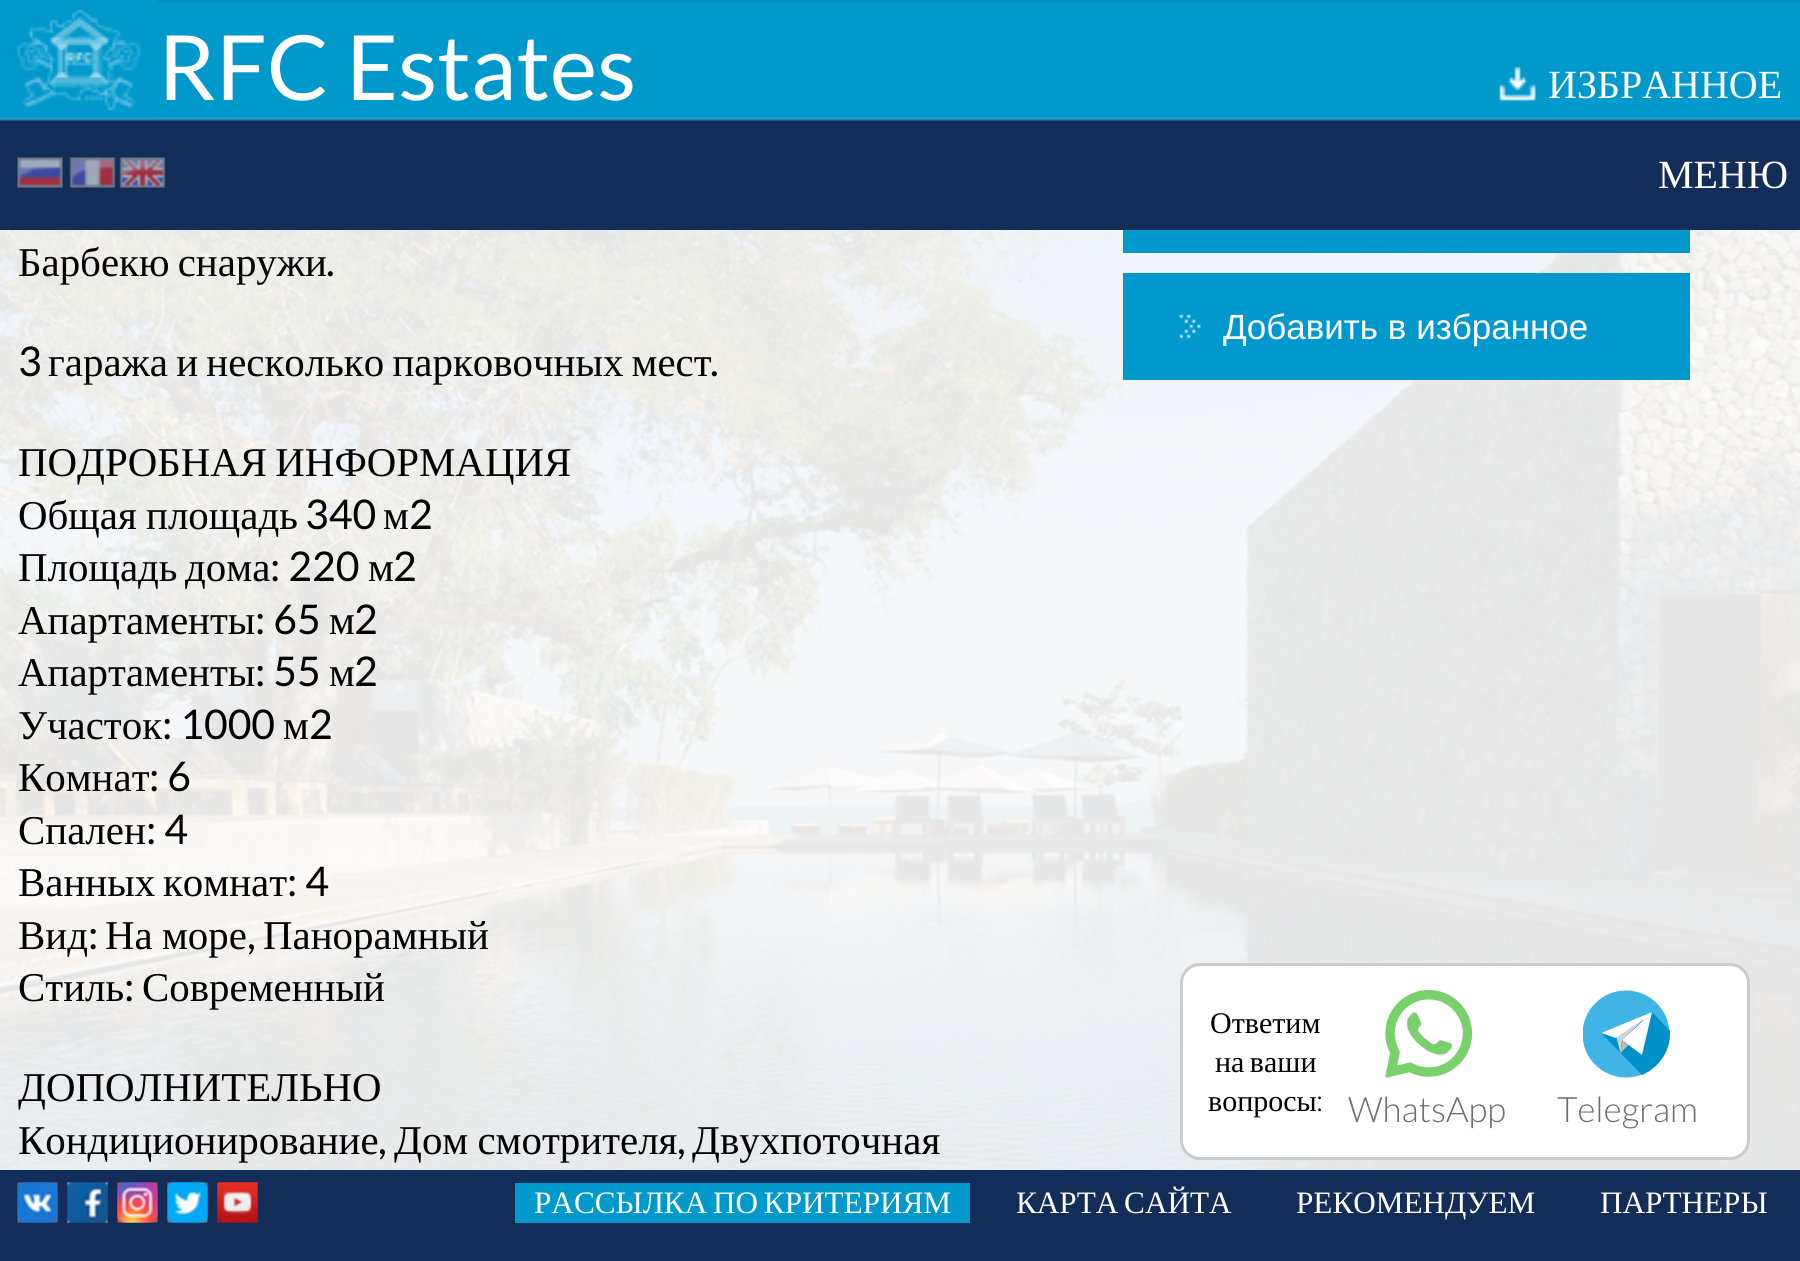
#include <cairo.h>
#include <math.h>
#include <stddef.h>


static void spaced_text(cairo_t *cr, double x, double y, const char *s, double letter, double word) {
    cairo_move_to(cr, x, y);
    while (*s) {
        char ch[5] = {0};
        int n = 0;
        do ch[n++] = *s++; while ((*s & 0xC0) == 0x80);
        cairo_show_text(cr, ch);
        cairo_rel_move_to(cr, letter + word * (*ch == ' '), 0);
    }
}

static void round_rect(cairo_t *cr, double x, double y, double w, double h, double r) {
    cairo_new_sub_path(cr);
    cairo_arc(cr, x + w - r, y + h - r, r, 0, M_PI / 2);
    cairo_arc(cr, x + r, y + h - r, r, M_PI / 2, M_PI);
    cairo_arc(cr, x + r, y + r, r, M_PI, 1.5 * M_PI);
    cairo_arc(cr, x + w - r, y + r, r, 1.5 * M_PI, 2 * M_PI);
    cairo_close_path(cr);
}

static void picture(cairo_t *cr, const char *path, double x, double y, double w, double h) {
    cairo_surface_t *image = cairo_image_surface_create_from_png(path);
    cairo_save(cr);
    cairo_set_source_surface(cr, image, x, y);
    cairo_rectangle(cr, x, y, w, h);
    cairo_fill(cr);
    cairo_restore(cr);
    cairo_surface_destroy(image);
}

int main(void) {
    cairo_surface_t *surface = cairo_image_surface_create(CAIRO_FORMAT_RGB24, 1800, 1261);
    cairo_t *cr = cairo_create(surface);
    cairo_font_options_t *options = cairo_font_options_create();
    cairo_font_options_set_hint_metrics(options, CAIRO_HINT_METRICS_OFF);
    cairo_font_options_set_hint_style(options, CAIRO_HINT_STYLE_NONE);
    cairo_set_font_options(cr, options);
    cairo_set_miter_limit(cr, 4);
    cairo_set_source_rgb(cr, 1, 1, 1);
    cairo_paint(cr);
    cairo_set_source_rgb(cr, 0.075, 0.176, 0.349);
    cairo_rectangle(cr, 0, 121, 1800, 109);
    cairo_fill(cr);
    picture(cr, "img1.png", 0, 0, 1800, 121);
    picture(cr, "img2.png", 0, 0, 158, 118);
    cairo_select_font_face(cr, "Lato", CAIRO_FONT_SLANT_NORMAL, CAIRO_FONT_WEIGHT_NORMAL);
    cairo_set_font_size(cr, 90);
    cairo_set_source_rgb(cr, 1, 1, 1);
    cairo_move_to(cr, 158, 100);
    cairo_show_text(cr, "RFC Estates");
    picture(cr, "img3.png", 1499, 66, 37, 35);
    cairo_select_font_face(cr, "Liberation Serif", CAIRO_FONT_SLANT_NORMAL, CAIRO_FONT_WEIGHT_NORMAL);
    cairo_set_font_size(cr, 40);
    cairo_move_to(cr, 1548, 98);
    cairo_show_text(cr, "ИЗБРАННОЕ");
    picture(cr, "img4.png", 17, 157, 46, 31);
    picture(cr, "img5.png", 69, 157, 47, 31);
    picture(cr, "img6.png", 119, 157, 47, 31);
    cairo_move_to(cr, 1658, 188);
    cairo_show_text(cr, "МЕНЮ");
    picture(cr, "img7.png", 0, 230, 1800, 940);
    cairo_set_font_size(cr, 40.9);
    cairo_set_source_rgb(cr, 0, 0, 0);
    spaced_text(cr, 18, 276, "Барбекю снаружи", 0, -2);
    cairo_select_font_face(cr, "Lato", CAIRO_FONT_SLANT_NORMAL, CAIRO_FONT_WEIGHT_NORMAL);
    cairo_move_to(cr, 326, 276);
    cairo_show_text(cr, ".");
    cairo_move_to(cr, 18, 376);
    cairo_show_text(cr, "3");
    cairo_select_font_face(cr, "Liberation Serif", CAIRO_FONT_SLANT_NORMAL, CAIRO_FONT_WEIGHT_NORMAL);
    spaced_text(cr, 48, 376, "гаража и несколько парковочных мест", 0, -2);
    cairo_select_font_face(cr, "Lato", CAIRO_FONT_SLANT_NORMAL, CAIRO_FONT_WEIGHT_NORMAL);
    cairo_move_to(cr, 710, 376);
    cairo_show_text(cr, ".");
    cairo_select_font_face(cr, "Liberation Serif", CAIRO_FONT_SLANT_NORMAL, CAIRO_FONT_WEIGHT_NORMAL);
    spaced_text(cr, 18, 476, "ПОДРОБНАЯ ИНФОРМАЦИЯ", 0, -2);
    spaced_text(cr, 18, 529, "Общая площадь", 0, -1);
    cairo_select_font_face(cr, "Lato", CAIRO_FONT_SLANT_NORMAL, CAIRO_FONT_WEIGHT_NORMAL);
    cairo_move_to(cr, 305, 529);
    cairo_show_text(cr, "340");
    cairo_select_font_face(cr, "Liberation Serif", CAIRO_FONT_SLANT_NORMAL, CAIRO_FONT_WEIGHT_NORMAL);
    cairo_move_to(cr, 383, 529);
    cairo_show_text(cr, "м");
    cairo_select_font_face(cr, "Lato", CAIRO_FONT_SLANT_NORMAL, CAIRO_FONT_WEIGHT_NORMAL);
    cairo_move_to(cr, 409, 529);
    cairo_show_text(cr, "2");
    cairo_select_font_face(cr, "Liberation Serif", CAIRO_FONT_SLANT_NORMAL, CAIRO_FONT_WEIGHT_NORMAL);
    cairo_move_to(cr, 18, 581);
    cairo_show_text(cr, "Площадь");
    cairo_move_to(cr, 185, 581);
    cairo_show_text(cr, "дома");
    cairo_select_font_face(cr, "Lato", CAIRO_FONT_SLANT_NORMAL, CAIRO_FONT_WEIGHT_NORMAL);
    cairo_move_to(cr, 270, 581);
    cairo_show_text(cr, ": 220");
    cairo_select_font_face(cr, "Liberation Serif", CAIRO_FONT_SLANT_NORMAL, CAIRO_FONT_WEIGHT_NORMAL);
    cairo_move_to(cr, 368, 581);
    cairo_show_text(cr, "м");
    cairo_select_font_face(cr, "Lato", CAIRO_FONT_SLANT_NORMAL, CAIRO_FONT_WEIGHT_NORMAL);
    cairo_move_to(cr, 393, 581);
    cairo_show_text(cr, "2");
    cairo_select_font_face(cr, "Liberation Serif", CAIRO_FONT_SLANT_NORMAL, CAIRO_FONT_WEIGHT_NORMAL);
    cairo_move_to(cr, 18, 634);
    cairo_show_text(cr, "Апартаменты");
    cairo_select_font_face(cr, "Lato", CAIRO_FONT_SLANT_NORMAL, CAIRO_FONT_WEIGHT_NORMAL);
    cairo_move_to(cr, 255, 634);
    cairo_show_text(cr, ": 65");
    cairo_select_font_face(cr, "Liberation Serif", CAIRO_FONT_SLANT_NORMAL, CAIRO_FONT_WEIGHT_NORMAL);
    cairo_move_to(cr, 329, 634);
    cairo_show_text(cr, "м");
    cairo_select_font_face(cr, "Lato", CAIRO_FONT_SLANT_NORMAL, CAIRO_FONT_WEIGHT_NORMAL);
    cairo_move_to(cr, 354, 634);
    cairo_show_text(cr, "2");
    cairo_select_font_face(cr, "Liberation Serif", CAIRO_FONT_SLANT_NORMAL, CAIRO_FONT_WEIGHT_NORMAL);
    cairo_move_to(cr, 18, 686);
    cairo_show_text(cr, "Апартаменты");
    cairo_select_font_face(cr, "Lato", CAIRO_FONT_SLANT_NORMAL, CAIRO_FONT_WEIGHT_NORMAL);
    cairo_move_to(cr, 255, 686);
    cairo_show_text(cr, ": 55");
    cairo_select_font_face(cr, "Liberation Serif", CAIRO_FONT_SLANT_NORMAL, CAIRO_FONT_WEIGHT_NORMAL);
    cairo_move_to(cr, 329, 686);
    cairo_show_text(cr, "м");
    cairo_select_font_face(cr, "Lato", CAIRO_FONT_SLANT_NORMAL, CAIRO_FONT_WEIGHT_NORMAL);
    cairo_move_to(cr, 354, 686);
    cairo_show_text(cr, "2");
    cairo_select_font_face(cr, "Liberation Serif", CAIRO_FONT_SLANT_NORMAL, CAIRO_FONT_WEIGHT_NORMAL);
    cairo_move_to(cr, 18, 739);
    cairo_show_text(cr, "Участок");
    cairo_select_font_face(cr, "Lato", CAIRO_FONT_SLANT_NORMAL, CAIRO_FONT_WEIGHT_NORMAL);
    cairo_move_to(cr, 162, 739);
    cairo_show_text(cr, ": 1000");
    cairo_select_font_face(cr, "Liberation Serif", CAIRO_FONT_SLANT_NORMAL, CAIRO_FONT_WEIGHT_NORMAL);
    cairo_move_to(cr, 283, 739);
    cairo_show_text(cr, "м");
    cairo_select_font_face(cr, "Lato", CAIRO_FONT_SLANT_NORMAL, CAIRO_FONT_WEIGHT_NORMAL);
    cairo_move_to(cr, 309, 739);
    cairo_show_text(cr, "2");
    cairo_select_font_face(cr, "Liberation Serif", CAIRO_FONT_SLANT_NORMAL, CAIRO_FONT_WEIGHT_NORMAL);
    cairo_move_to(cr, 18, 791);
    cairo_show_text(cr, "Комнат");
    cairo_select_font_face(cr, "Lato", CAIRO_FONT_SLANT_NORMAL, CAIRO_FONT_WEIGHT_NORMAL);
    cairo_move_to(cr, 149, 791);
    cairo_show_text(cr, ": 6");
    cairo_select_font_face(cr, "Liberation Serif", CAIRO_FONT_SLANT_NORMAL, CAIRO_FONT_WEIGHT_NORMAL);
    cairo_move_to(cr, 18, 844);
    cairo_show_text(cr, "Спален");
    cairo_select_font_face(cr, "Lato", CAIRO_FONT_SLANT_NORMAL, CAIRO_FONT_WEIGHT_NORMAL);
    cairo_move_to(cr, 146, 844);
    cairo_show_text(cr, ": 4");
    cairo_select_font_face(cr, "Liberation Serif", CAIRO_FONT_SLANT_NORMAL, CAIRO_FONT_WEIGHT_NORMAL);
    cairo_move_to(cr, 18, 896);
    cairo_show_text(cr, "Ванных");
    cairo_move_to(cr, 163, 896);
    cairo_show_text(cr, "комнат");
    cairo_select_font_face(cr, "Lato", CAIRO_FONT_SLANT_NORMAL, CAIRO_FONT_WEIGHT_NORMAL);
    cairo_move_to(cr, 287, 896);
    cairo_show_text(cr, ": 4");
    cairo_select_font_face(cr, "Liberation Serif", CAIRO_FONT_SLANT_NORMAL, CAIRO_FONT_WEIGHT_NORMAL);
    cairo_move_to(cr, 18, 949);
    cairo_show_text(cr, "Вид");
    cairo_select_font_face(cr, "Lato", CAIRO_FONT_SLANT_NORMAL, CAIRO_FONT_WEIGHT_NORMAL);
    cairo_move_to(cr, 88, 949);
    cairo_show_text(cr, ":");
    cairo_select_font_face(cr, "Liberation Serif", CAIRO_FONT_SLANT_NORMAL, CAIRO_FONT_WEIGHT_NORMAL);
    spaced_text(cr, 105, 949, "На море", 0, -1);
    cairo_select_font_face(cr, "Lato", CAIRO_FONT_SLANT_NORMAL, CAIRO_FONT_WEIGHT_NORMAL);
    cairo_move_to(cr, 247, 949);
    cairo_show_text(cr, ",");
    cairo_select_font_face(cr, "Liberation Serif", CAIRO_FONT_SLANT_NORMAL, CAIRO_FONT_WEIGHT_NORMAL);
    cairo_move_to(cr, 263, 949);
    cairo_show_text(cr, "Панорамный");
    cairo_move_to(cr, 18, 1001);
    cairo_show_text(cr, "Стиль");
    cairo_select_font_face(cr, "Lato", CAIRO_FONT_SLANT_NORMAL, CAIRO_FONT_WEIGHT_NORMAL);
    cairo_move_to(cr, 124, 1001);
    cairo_show_text(cr, ":");
    cairo_select_font_face(cr, "Liberation Serif", CAIRO_FONT_SLANT_NORMAL, CAIRO_FONT_WEIGHT_NORMAL);
    cairo_move_to(cr, 142, 1001);
    cairo_show_text(cr, "Современный");
    cairo_move_to(cr, 18, 1101);
    cairo_show_text(cr, "ДОПОЛНИТЕЛЬНО");
    cairo_move_to(cr, 18, 1154);
    cairo_show_text(cr, "Кондиционирование");
    cairo_select_font_face(cr, "Lato", CAIRO_FONT_SLANT_NORMAL, CAIRO_FONT_WEIGHT_NORMAL);
    cairo_move_to(cr, 378, 1154);
    cairo_show_text(cr, ",");
    cairo_select_font_face(cr, "Liberation Serif", CAIRO_FONT_SLANT_NORMAL, CAIRO_FONT_WEIGHT_NORMAL);
    spaced_text(cr, 394, 1154, "Дом смотрителя", 0, -1);
    cairo_select_font_face(cr, "Lato", CAIRO_FONT_SLANT_NORMAL, CAIRO_FONT_WEIGHT_NORMAL);
    cairo_move_to(cr, 677, 1154);
    cairo_show_text(cr, ",");
    cairo_select_font_face(cr, "Liberation Serif", CAIRO_FONT_SLANT_NORMAL, CAIRO_FONT_WEIGHT_NORMAL);
    cairo_move_to(cr, 692, 1154);
    cairo_show_text(cr, "Двухпоточная");
    cairo_set_source_rgb(cr, 0.004, 0.596, 0.804);
    cairo_rectangle(cr, 1123, 230, 567, 23);
    cairo_fill(cr);
    cairo_rectangle(cr, 1123, 273, 567, 107);
    cairo_fill(cr);
    picture(cr, "img8.png", 1179, 314, 22, 25);
    cairo_select_font_face(cr, "Liberation Sans", CAIRO_FONT_SLANT_NORMAL, CAIRO_FONT_WEIGHT_NORMAL);
    cairo_set_font_size(cr, 35);
    cairo_set_source_rgb(cr, 1, 1, 1);
    cairo_move_to(cr, 1223, 339);
    cairo_show_text(cr, "Добавить в избранное");
    round_rect(cr, 1181.5, 964.5, 567, 194, 18.5);
    cairo_fill_preserve(cr);
    cairo_set_source_rgb(cr, 0.8, 0.8, 0.8);
    cairo_set_line_width(cr, 3);
    cairo_stroke(cr);
    cairo_select_font_face(cr, "Liberation Serif", CAIRO_FONT_SLANT_NORMAL, CAIRO_FONT_WEIGHT_NORMAL);
    cairo_set_font_size(cr, 30);
    cairo_set_source_rgb(cr, 0, 0, 0);
    cairo_move_to(cr, 1210, 1033);
    cairo_show_text(cr, "Ответим");
    spaced_text(cr, 1215, 1072, "на ваши", 0, -2);
    cairo_move_to(cr, 1208, 1111);
    cairo_show_text(cr, "вопросы");
    cairo_select_font_face(cr, "Lato Light", CAIRO_FONT_SLANT_NORMAL, CAIRO_FONT_WEIGHT_NORMAL);
    cairo_move_to(cr, 1316, 1111);
    cairo_show_text(cr, ":");
    picture(cr, "img9.png", 1385, 990, 88, 88);
    cairo_set_font_size(cr, 35);
    cairo_set_source_rgb(cr, 0.431, 0.431, 0.431);
    cairo_move_to(cr, 1348, 1122);
    cairo_show_text(cr, "WhatsApp");
    cairo_save(cr);
    cairo_rectangle(cr, 1583, 990, 87, 88);
    cairo_clip(cr);
    cairo_set_source_rgb(cr, 0.255, 0.706, 0.902);
    cairo_arc(cr, 1626, 1034, 43.5, 0, 2 * M_PI);
    cairo_fill(cr);
    cairo_restore(cr);
    cairo_set_source_rgb(cr, 0, 0.569, 0.784);
    cairo_new_path(cr);
    cairo_move_to(cr, 1670, 1034);
    cairo_line_to(cr, 1670, 1031);
    cairo_line_to(cr, 1652, 1012);
    cairo_line_to(cr, 1601, 1033);
    cairo_line_to(cr, 1642, 1075);
    cairo_curve_to(cr, 1658, 1068, 1670, 1052, 1670, 1034);
    cairo_close_path(cr);
    cairo_fill(cr);
    cairo_set_source_rgb(cr, 1, 1, 1);
    cairo_new_path(cr);
    cairo_move_to(cr, 1622, 1040);
    cairo_line_to(cr, 1642, 1055);
    cairo_line_to(cr, 1652, 1012);
    cairo_line_to(cr, 1601, 1033);
    cairo_line_to(cr, 1616, 1038);
    cairo_line_to(cr, 1645, 1019);
    cairo_close_path(cr);
    cairo_fill(cr);
    cairo_set_source_rgb(cr, 0.824, 0.824, 0.843);
    cairo_new_path(cr);
    cairo_move_to(cr, 1616.5, 1037.5);
    cairo_line_to(cr, 1620.5, 1053);
    cairo_line_to(cr, 1622, 1040);
    cairo_line_to(cr, 1644.5, 1018.5);
    cairo_close_path(cr);
    cairo_fill(cr);
    cairo_set_source_rgb(cr, 0.725, 0.725, 0.745);
    cairo_new_path(cr);
    cairo_move_to(cr, 1628.5, 1045);
    cairo_line_to(cr, 1620.5, 1053);
    cairo_line_to(cr, 1622, 1040);
    cairo_close_path(cr);
    cairo_fill(cr);
    cairo_set_source_rgb(cr, 0.431, 0.431, 0.431);
    cairo_move_to(cr, 1557, 1122);
    cairo_show_text(cr, "Telegram");
    cairo_set_source_rgb(cr, 0.075, 0.176, 0.349);
    cairo_rectangle(cr, 0, 1170, 1800, 91);
    cairo_fill(cr);
    picture(cr, "img10.png", 17, 1182, 41, 41);
    picture(cr, "img11.png", 17, 1182, 41, 41);
    picture(cr, "img12.png", 67, 1182, 41, 41);
    picture(cr, "img13.png", 67, 1182, 41, 41);
    picture(cr, "img14.png", 117, 1182, 41, 41);
    picture(cr, "img15.png", 117, 1182, 41, 41);
    picture(cr, "img16.png", 167, 1182, 41, 41);
    picture(cr, "img17.png", 167, 1182, 41, 41);
    picture(cr, "img18.png", 217, 1182, 41, 41);
    picture(cr, "img19.png", 217, 1182, 41, 41);
    cairo_set_source_rgb(cr, 0, 0.6, 0.8);
    cairo_rectangle(cr, 515, 1183, 455, 40);
    cairo_fill(cr);
    cairo_select_font_face(cr, "Liberation Serif", CAIRO_FONT_SLANT_NORMAL, CAIRO_FONT_WEIGHT_NORMAL);
    cairo_set_font_size(cr, 31.2);
    cairo_set_source_rgb(cr, 1, 1, 1);
    spaced_text(cr, 534, 1213, "РАССЫЛКА ПО КРИТЕРИЯМ", 0, -2);
    spaced_text(cr, 1016, 1213, "КАРТА САЙТА", 0, -2);
    cairo_move_to(cr, 1296, 1213);
    cairo_show_text(cr, "РЕКОМЕНДУЕМ");
    cairo_move_to(cr, 1600, 1213);
    cairo_show_text(cr, "ПАРТНЕРЫ");
    cairo_surface_write_to_png(surface, "page.png");
    cairo_font_options_destroy(options);
    cairo_destroy(cr);
    cairo_surface_destroy(surface);
    return 0;
}
